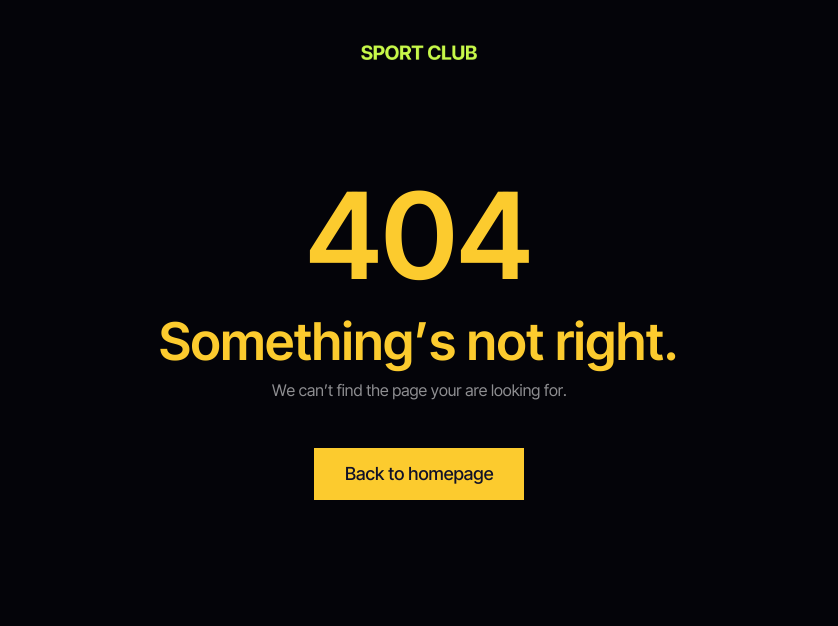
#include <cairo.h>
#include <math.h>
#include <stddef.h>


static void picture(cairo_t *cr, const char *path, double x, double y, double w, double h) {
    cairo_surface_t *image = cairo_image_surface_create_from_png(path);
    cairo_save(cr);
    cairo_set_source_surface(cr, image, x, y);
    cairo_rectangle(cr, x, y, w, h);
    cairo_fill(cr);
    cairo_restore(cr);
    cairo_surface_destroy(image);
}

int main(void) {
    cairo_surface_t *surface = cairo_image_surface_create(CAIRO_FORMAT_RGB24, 838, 626);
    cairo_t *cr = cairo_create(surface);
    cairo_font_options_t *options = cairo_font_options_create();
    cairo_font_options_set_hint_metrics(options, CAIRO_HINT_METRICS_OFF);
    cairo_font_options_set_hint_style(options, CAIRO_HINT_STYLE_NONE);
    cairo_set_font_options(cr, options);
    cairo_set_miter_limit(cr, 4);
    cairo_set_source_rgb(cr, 0.016, 0.016, 0.039);
    cairo_paint(cr);
    picture(cr, "img1.png", 361, 45, 116, 15);
    cairo_select_font_face(cr, "Inter Tight SemiBold", CAIRO_FONT_SLANT_NORMAL, CAIRO_FONT_WEIGHT_NORMAL);
    cairo_set_font_size(cr, 120);
    cairo_set_source_rgb(cr, 0.988, 0.796, 0.18);
    cairo_move_to(cr, 306, 279);
    cairo_show_text(cr, "404");
    cairo_set_font_size(cr, 52);
    cairo_move_to(cr, 159, 360);
    cairo_show_text(cr, "Something’s not right.");
    cairo_select_font_face(cr, "Inter Tight", CAIRO_FONT_SLANT_NORMAL, CAIRO_FONT_WEIGHT_NORMAL);
    cairo_set_font_size(cr, 16);
    cairo_set_source_rgb(cr, 0.557, 0.557, 0.569);
    cairo_move_to(cr, 272, 396);
    cairo_show_text(cr, "We can’t find the page your are looking for.");
    cairo_set_source_rgb(cr, 0.988, 0.796, 0.18);
    cairo_rectangle(cr, 314, 448, 210, 52);
    cairo_fill(cr);
    cairo_select_font_face(cr, "Inter Tight Medium", CAIRO_FONT_SLANT_NORMAL, CAIRO_FONT_WEIGHT_NORMAL);
    cairo_set_font_size(cr, 18);
    cairo_set_source_rgb(cr, 0.063, 0.067, 0.157);
    cairo_move_to(cr, 345, 480);
    cairo_show_text(cr, "Back to homepage");
    cairo_surface_write_to_png(surface, "page.png");
    cairo_font_options_destroy(options);
    cairo_destroy(cr);
    cairo_surface_destroy(surface);
    return 0;
}
